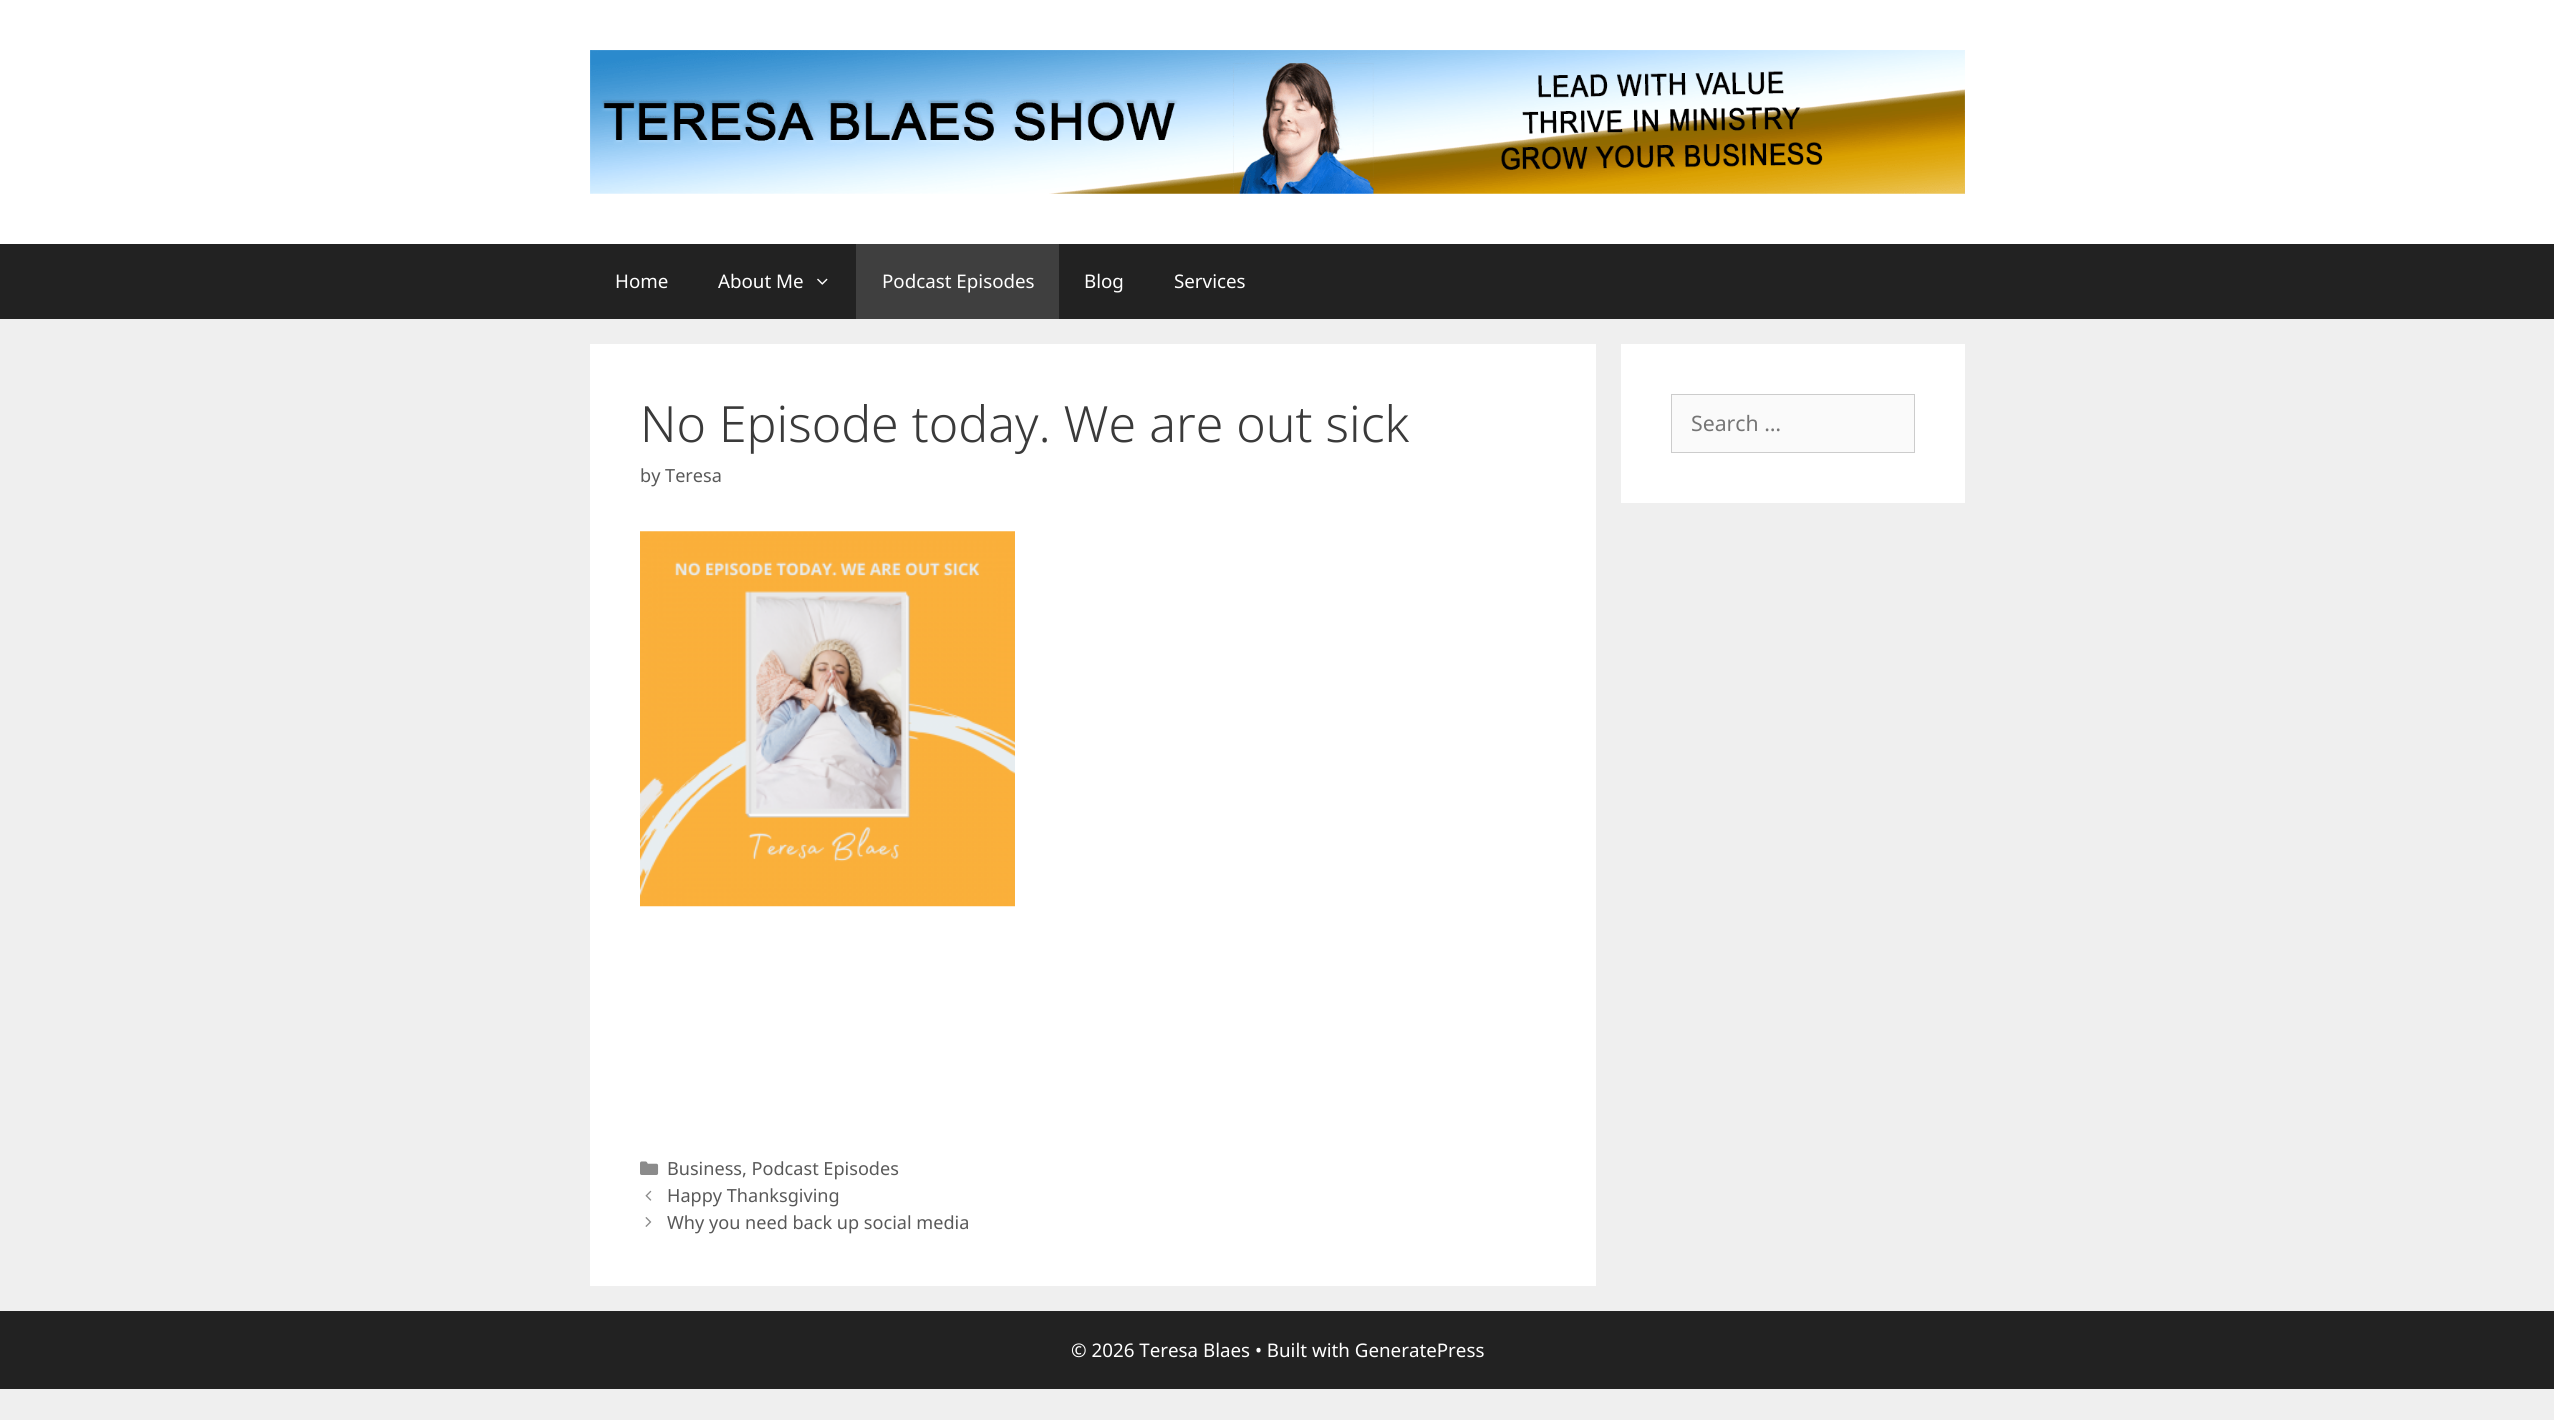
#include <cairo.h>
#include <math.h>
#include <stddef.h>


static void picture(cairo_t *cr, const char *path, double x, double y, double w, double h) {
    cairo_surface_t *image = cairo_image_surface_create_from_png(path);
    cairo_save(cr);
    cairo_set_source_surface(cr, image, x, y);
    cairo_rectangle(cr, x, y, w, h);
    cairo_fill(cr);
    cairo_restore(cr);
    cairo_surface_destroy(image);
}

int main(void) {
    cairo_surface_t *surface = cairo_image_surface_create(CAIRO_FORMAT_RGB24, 2554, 1420);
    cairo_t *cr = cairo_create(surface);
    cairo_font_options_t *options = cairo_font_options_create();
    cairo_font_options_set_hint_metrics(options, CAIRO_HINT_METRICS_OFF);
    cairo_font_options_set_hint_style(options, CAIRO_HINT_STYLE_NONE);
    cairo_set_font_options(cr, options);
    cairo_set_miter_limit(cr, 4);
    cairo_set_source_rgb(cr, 0.937, 0.937, 0.937);
    cairo_paint(cr);
    cairo_set_source_rgb(cr, 1, 1, 1);
    cairo_rectangle(cr, 0, 0, 2554, 244);
    cairo_fill(cr);
    picture(cr, "img1.png", 590, 50, 1375, 144);
    cairo_set_source_rgb(cr, 0.133, 0.133, 0.133);
    cairo_rectangle(cr, 0, 244, 2554, 75);
    cairo_fill(cr);
    cairo_select_font_face(cr, "Noto Sans", CAIRO_FONT_SLANT_NORMAL, CAIRO_FONT_WEIGHT_NORMAL);
    cairo_set_font_size(cr, 18.75);
    cairo_set_source_rgb(cr, 1, 1, 1);
    cairo_move_to(cr, 615, 288);
    cairo_show_text(cr, "Home");
    cairo_move_to(cr, 718, 288);
    cairo_show_text(cr, "About Me");
    picture(cr, "img2.png", 817, 278, 11, 7);
    cairo_set_source_rgb(cr, 0.247, 0.247, 0.247);
    cairo_rectangle(cr, 856, 244, 203, 75);
    cairo_fill(cr);
    cairo_set_source_rgb(cr, 1, 1, 1);
    cairo_move_to(cr, 882, 288);
    cairo_show_text(cr, "Podcast Episodes");
    cairo_move_to(cr, 1084, 288);
    cairo_show_text(cr, "Blog");
    cairo_move_to(cr, 1174, 288);
    cairo_show_text(cr, "Services");
    cairo_rectangle(cr, 590, 344, 1006, 942);
    cairo_fill(cr);
    cairo_select_font_face(cr, "Noto Sans Light", CAIRO_FONT_SLANT_NORMAL, CAIRO_FONT_WEIGHT_NORMAL);
    cairo_set_font_size(cr, 50);
    cairo_set_source_rgb(cr, 0.227, 0.227, 0.227);
    cairo_move_to(cr, 640, 442);
    cairo_show_text(cr, "No Episode today. We are out sick");
    cairo_select_font_face(cr, "Noto Sans", CAIRO_FONT_SLANT_NORMAL, CAIRO_FONT_WEIGHT_NORMAL);
    cairo_set_font_size(cr, 18.1);
    cairo_set_source_rgb(cr, 0.349, 0.349, 0.349);
    cairo_move_to(cr, 640, 482);
    cairo_show_text(cr, "by Teresa");
    picture(cr, "img3.png", 640, 531, 375, 376);
    picture(cr, "img4.png", 640, 1161, 19, 14);
    cairo_move_to(cr, 667, 1175);
    cairo_show_text(cr, "Business, Podcast Episodes");
    picture(cr, "img5.png", 645, 1190, 7, 11);
    cairo_move_to(cr, 667, 1202);
    cairo_show_text(cr, "Happy Thanksgiving");
    picture(cr, "img6.png", 645, 1217, 7, 10);
    cairo_move_to(cr, 667, 1229);
    cairo_show_text(cr, "Why you need back up social media");
    cairo_set_source_rgb(cr, 1, 1, 1);
    cairo_rectangle(cr, 1621, 344, 344, 159);
    cairo_fill(cr);
    cairo_set_source_rgb(cr, 0.98, 0.98, 0.98);
    cairo_rectangle(cr, 1671.5, 394.5, 243, 58);
    cairo_fill_preserve(cr);
    cairo_set_source_rgb(cr, 0.8, 0.8, 0.8);
    cairo_set_line_width(cr, 1);
    cairo_stroke(cr);
    cairo_set_font_size(cr, 21.25);
    cairo_set_source_rgb(cr, 0.459, 0.459, 0.459);
    cairo_move_to(cr, 1691, 431);
    cairo_show_text(cr, "Search …");
    cairo_set_source_rgb(cr, 0.133, 0.133, 0.133);
    cairo_rectangle(cr, 0, 1311, 2554, 78);
    cairo_fill(cr);
    cairo_set_font_size(cr, 18.75);
    cairo_set_source_rgb(cr, 1, 1, 1);
    cairo_move_to(cr, 1071, 1357);
    cairo_show_text(cr, "© 2026 Teresa Blaes • Built with GeneratePress");
    cairo_surface_write_to_png(surface, "page.png");
    cairo_font_options_destroy(options);
    cairo_destroy(cr);
    cairo_surface_destroy(surface);
    return 0;
}
